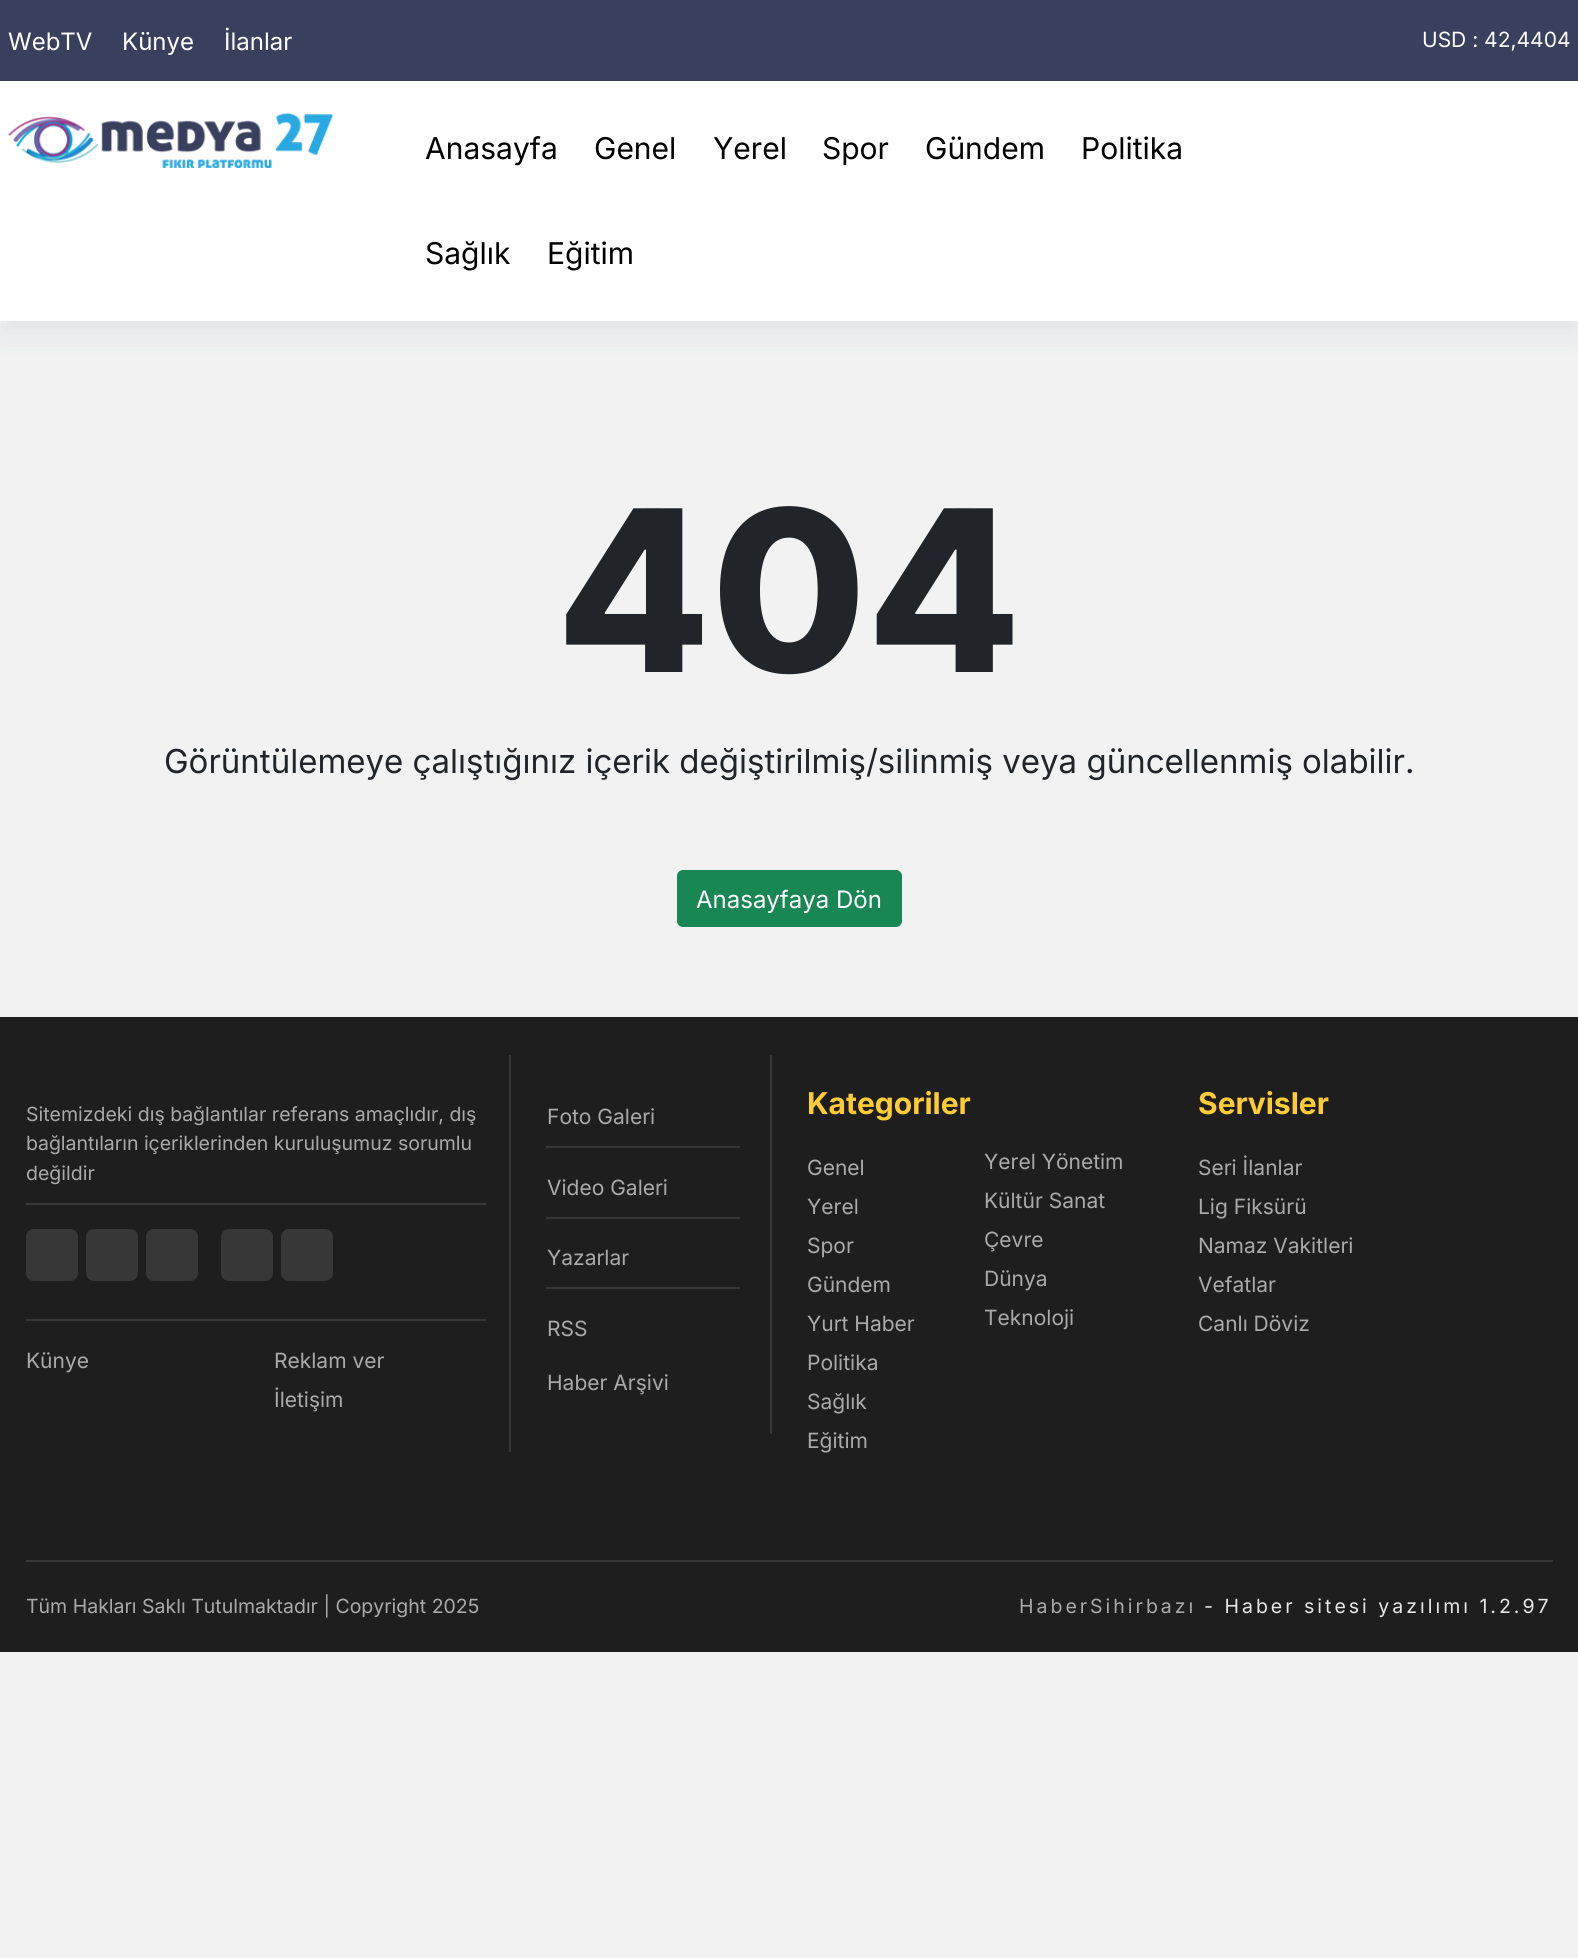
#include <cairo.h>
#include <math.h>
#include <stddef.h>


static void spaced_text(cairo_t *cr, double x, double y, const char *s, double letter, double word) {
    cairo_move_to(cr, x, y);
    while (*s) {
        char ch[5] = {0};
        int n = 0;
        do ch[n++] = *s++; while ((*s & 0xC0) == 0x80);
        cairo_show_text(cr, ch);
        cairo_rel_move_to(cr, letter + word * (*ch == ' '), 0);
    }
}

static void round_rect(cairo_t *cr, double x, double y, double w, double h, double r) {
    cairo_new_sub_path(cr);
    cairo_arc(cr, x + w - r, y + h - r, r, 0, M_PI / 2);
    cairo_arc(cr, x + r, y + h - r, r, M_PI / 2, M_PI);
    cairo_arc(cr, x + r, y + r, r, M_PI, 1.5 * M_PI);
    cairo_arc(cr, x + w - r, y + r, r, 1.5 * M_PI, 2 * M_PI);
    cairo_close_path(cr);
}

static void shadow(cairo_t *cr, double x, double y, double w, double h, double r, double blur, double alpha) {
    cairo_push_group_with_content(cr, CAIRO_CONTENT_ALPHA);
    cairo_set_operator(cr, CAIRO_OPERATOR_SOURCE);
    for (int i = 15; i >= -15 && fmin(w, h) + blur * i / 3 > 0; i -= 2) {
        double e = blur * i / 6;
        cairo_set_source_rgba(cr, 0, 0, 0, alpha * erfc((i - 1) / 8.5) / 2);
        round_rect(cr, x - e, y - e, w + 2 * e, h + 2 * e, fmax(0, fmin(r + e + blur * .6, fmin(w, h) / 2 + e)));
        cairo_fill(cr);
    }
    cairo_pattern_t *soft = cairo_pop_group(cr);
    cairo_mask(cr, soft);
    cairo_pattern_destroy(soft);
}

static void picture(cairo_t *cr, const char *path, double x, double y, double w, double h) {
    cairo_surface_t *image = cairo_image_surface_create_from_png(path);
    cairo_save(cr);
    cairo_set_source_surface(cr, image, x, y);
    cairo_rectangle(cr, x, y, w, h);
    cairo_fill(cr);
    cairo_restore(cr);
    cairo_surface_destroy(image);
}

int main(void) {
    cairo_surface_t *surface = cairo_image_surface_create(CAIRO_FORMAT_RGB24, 1578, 1958);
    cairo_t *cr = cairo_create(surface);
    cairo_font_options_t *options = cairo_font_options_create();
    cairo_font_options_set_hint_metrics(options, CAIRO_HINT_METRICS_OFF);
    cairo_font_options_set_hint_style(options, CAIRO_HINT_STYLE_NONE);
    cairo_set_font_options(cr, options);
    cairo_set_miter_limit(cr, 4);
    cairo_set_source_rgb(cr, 0.949, 0.949, 0.949);
    cairo_paint(cr);
    cairo_set_source_rgb(cr, 0.22, 0.251, 0.369);
    cairo_rectangle(cr, 0, 0, 1578, 81);
    cairo_fill(cr);
    cairo_select_font_face(cr, "Inter", CAIRO_FONT_SLANT_NORMAL, CAIRO_FONT_WEIGHT_NORMAL);
    cairo_set_font_size(cr, 24);
    cairo_set_source_rgb(cr, 1, 1, 1);
    cairo_move_to(cr, 8, 50);
    cairo_show_text(cr, "WebTV");
    cairo_move_to(cr, 122, 50);
    cairo_show_text(cr, "Künye");
    cairo_move_to(cr, 224, 50);
    cairo_show_text(cr, "İlanlar");
    cairo_set_font_size(cr, 21);
    cairo_move_to(cr, 1422, 47);
    cairo_show_text(cr, "USD : 42,4404");
    cairo_set_source_rgb(cr, 0.133, 0.259, 0.49);
    shadow(cr, 0, 96, 1578, 240, 0, 13.5, 0.08);
    cairo_set_source_rgb(cr, 1, 1, 1);
    cairo_rectangle(cr, 0, 81, 1578, 240);
    cairo_fill(cr);
    picture(cr, "img1.png", 8, 113, 325, 55);
    cairo_set_font_size(cr, 30);
    cairo_set_source_rgb(cr, 0, 0, 0);
    cairo_move_to(cr, 425, 159);
    cairo_show_text(cr, "Anasayfa");
    cairo_move_to(cr, 594, 159);
    cairo_show_text(cr, "Genel");
    cairo_move_to(cr, 713, 159);
    cairo_show_text(cr, "Yerel");
    cairo_move_to(cr, 822, 159);
    cairo_show_text(cr, "Spor");
    cairo_move_to(cr, 925, 159);
    cairo_show_text(cr, "Gündem");
    cairo_move_to(cr, 1081, 159);
    cairo_show_text(cr, "Politika");
    cairo_move_to(cr, 425, 264);
    cairo_show_text(cr, "Sağlık");
    cairo_move_to(cr, 547, 264);
    cairo_show_text(cr, "Eğitim");
    cairo_select_font_face(cr, "Inter ExtraBold", CAIRO_FONT_SLANT_NORMAL, CAIRO_FONT_WEIGHT_NORMAL);
    cairo_set_font_size(cr, 225);
    cairo_set_source_rgb(cr, 0.129, 0.145, 0.161);
    cairo_move_to(cr, 556, 672);
    cairo_show_text(cr, "404");
    cairo_select_font_face(cr, "Inter", CAIRO_FONT_SLANT_NORMAL, CAIRO_FONT_WEIGHT_NORMAL);
    cairo_set_font_size(cr, 33);
    cairo_move_to(cr, 164, 773);
    cairo_show_text(cr, "Görüntülemeye çalıştığınız içerik değiştirilmiş/silinmiş veya güncellenmiş olabilir.");
    cairo_set_source_rgb(cr, 0.098, 0.529, 0.329);
    round_rect(cr, 678, 871, 223, 55, 5);
    cairo_fill_preserve(cr);
    cairo_stroke(cr);
    cairo_set_font_size(cr, 24);
    cairo_set_source_rgb(cr, 1, 1, 1);
    cairo_move_to(cr, 696, 908);
    cairo_show_text(cr, "Anasayfaya Dön");
    cairo_set_source_rgb(cr, 0.118, 0.118, 0.118);
    cairo_rectangle(cr, 0, 1017, 1578, 635);
    cairo_fill(cr);
    cairo_set_source_rgb(cr, 0.216, 0.216, 0.216);
    cairo_rectangle(cr, 509, 1055, 2, 397);
    cairo_fill(cr);
    cairo_rectangle(cr, 26, 1203, 460, 2);
    cairo_fill(cr);
    cairo_set_font_size(cr, 19.5);
    cairo_set_source_rgb(cr, 0.667, 0.667, 0.667);
    cairo_move_to(cr, 26, 1121);
    cairo_show_text(cr, "Sitemizdeki dış bağlantılar referans amaçlıdır, dış");
    cairo_move_to(cr, 26, 1150);
    cairo_show_text(cr, "bağlantıların içeriklerinden kuruluşumuz sorumlu");
    cairo_move_to(cr, 26, 1180);
    cairo_show_text(cr, "değildir");
    cairo_set_source_rgb(cr, 0.216, 0.216, 0.216);
    round_rect(cr, 26, 1229, 52, 52, 8);
    cairo_fill(cr);
    round_rect(cr, 86, 1229, 52, 52, 8);
    cairo_fill(cr);
    round_rect(cr, 146, 1229, 52, 52, 8);
    cairo_fill(cr);
    round_rect(cr, 221, 1229, 52, 52, 8);
    cairo_fill(cr);
    round_rect(cr, 281, 1229, 52, 52, 8);
    cairo_fill(cr);
    cairo_rectangle(cr, 26, 1319, 460, 2);
    cairo_fill(cr);
    cairo_set_font_size(cr, 21);
    cairo_set_source_rgb(cr, 0.667, 0.667, 0.667);
    cairo_move_to(cr, 26, 1368);
    cairo_show_text(cr, "Künye");
    cairo_move_to(cr, 274, 1368);
    cairo_show_text(cr, "Reklam ver");
    cairo_move_to(cr, 274, 1407);
    cairo_show_text(cr, "İletişim");
    cairo_set_source_rgb(cr, 0.216, 0.216, 0.216);
    cairo_rectangle(cr, 770, 1055, 2, 379);
    cairo_fill(cr);
    cairo_rectangle(cr, 546, 1146, 194, 2);
    cairo_fill(cr);
    cairo_set_source_rgb(cr, 0.667, 0.667, 0.667);
    cairo_move_to(cr, 547, 1124);
    cairo_show_text(cr, "Foto Galeri");
    cairo_set_source_rgb(cr, 0.216, 0.216, 0.216);
    cairo_rectangle(cr, 546, 1217, 194, 2);
    cairo_fill(cr);
    cairo_set_source_rgb(cr, 0.667, 0.667, 0.667);
    cairo_move_to(cr, 547, 1195);
    cairo_show_text(cr, "Video Galeri");
    cairo_set_source_rgb(cr, 0.216, 0.216, 0.216);
    cairo_rectangle(cr, 546, 1287, 194, 2);
    cairo_fill(cr);
    cairo_set_source_rgb(cr, 0.667, 0.667, 0.667);
    cairo_move_to(cr, 547, 1265);
    cairo_show_text(cr, "Yazarlar");
    cairo_move_to(cr, 547, 1336);
    cairo_show_text(cr, "RSS");
    cairo_move_to(cr, 547, 1390);
    cairo_show_text(cr, "Haber Arşivi");
    cairo_select_font_face(cr, "Inter", CAIRO_FONT_SLANT_NORMAL, CAIRO_FONT_WEIGHT_BOLD);
    cairo_set_font_size(cr, 30);
    cairo_set_source_rgb(cr, 1, 0.8, 0.2);
    cairo_move_to(cr, 807, 1114);
    cairo_show_text(cr, "Kategoriler");
    cairo_select_font_face(cr, "Inter", CAIRO_FONT_SLANT_NORMAL, CAIRO_FONT_WEIGHT_NORMAL);
    cairo_set_font_size(cr, 21);
    cairo_set_source_rgb(cr, 0.667, 0.667, 0.667);
    cairo_move_to(cr, 807, 1175);
    cairo_show_text(cr, "Genel");
    cairo_move_to(cr, 807, 1214);
    cairo_show_text(cr, "Yerel");
    cairo_move_to(cr, 807, 1253);
    cairo_show_text(cr, "Spor");
    cairo_move_to(cr, 807, 1292);
    cairo_show_text(cr, "Gündem");
    cairo_move_to(cr, 807, 1331);
    cairo_show_text(cr, "Yurt Haber");
    cairo_move_to(cr, 807, 1370);
    cairo_show_text(cr, "Politika");
    cairo_move_to(cr, 807, 1409);
    cairo_show_text(cr, "Sağlık");
    cairo_move_to(cr, 807, 1448);
    cairo_show_text(cr, "Eğitim");
    cairo_move_to(cr, 984, 1169);
    cairo_show_text(cr, "Yerel Yönetim");
    cairo_move_to(cr, 984, 1208);
    cairo_show_text(cr, "Kültür Sanat");
    cairo_move_to(cr, 984, 1247);
    cairo_show_text(cr, "Çevre");
    cairo_move_to(cr, 984, 1286);
    cairo_show_text(cr, "Dünya");
    cairo_move_to(cr, 984, 1325);
    cairo_show_text(cr, "Teknoloji");
    cairo_select_font_face(cr, "Inter", CAIRO_FONT_SLANT_NORMAL, CAIRO_FONT_WEIGHT_BOLD);
    cairo_set_font_size(cr, 30);
    cairo_set_source_rgb(cr, 1, 0.8, 0.2);
    cairo_move_to(cr, 1198, 1114);
    cairo_show_text(cr, "Servisler");
    cairo_select_font_face(cr, "Inter", CAIRO_FONT_SLANT_NORMAL, CAIRO_FONT_WEIGHT_NORMAL);
    cairo_set_font_size(cr, 21);
    cairo_set_source_rgb(cr, 0.667, 0.667, 0.667);
    cairo_move_to(cr, 1198, 1175);
    cairo_show_text(cr, "Seri İlanlar");
    cairo_move_to(cr, 1198, 1214);
    cairo_show_text(cr, "Lig Fiksürü");
    cairo_move_to(cr, 1198, 1253);
    cairo_show_text(cr, "Namaz Vakitleri");
    cairo_move_to(cr, 1198, 1292);
    cairo_show_text(cr, "Vefatlar");
    cairo_move_to(cr, 1198, 1331);
    cairo_show_text(cr, "Canlı Döviz");
    cairo_set_source_rgb(cr, 0.216, 0.216, 0.216);
    cairo_rectangle(cr, 26, 1560, 1527, 2);
    cairo_fill(cr);
    cairo_set_font_size(cr, 19.5);
    cairo_set_source_rgb(cr, 0.667, 0.667, 0.667);
    cairo_move_to(cr, 26, 1613);
    cairo_show_text(cr, "Tüm Hakları Saklı Tutulmaktadır | Copyright 2025");
    spaced_text(cr, 1019, 1613, "HaberSihirbazı", 3, 0);
    cairo_set_source_rgb(cr, 0.906, 0.906, 0.906);
    spaced_text(cr, 1204, 1613, "- Haber sitesi yazılımı 1.2.97", 3, 0);
    cairo_surface_write_to_png(surface, "page.png");
    cairo_font_options_destroy(options);
    cairo_destroy(cr);
    cairo_surface_destroy(surface);
    return 0;
}
